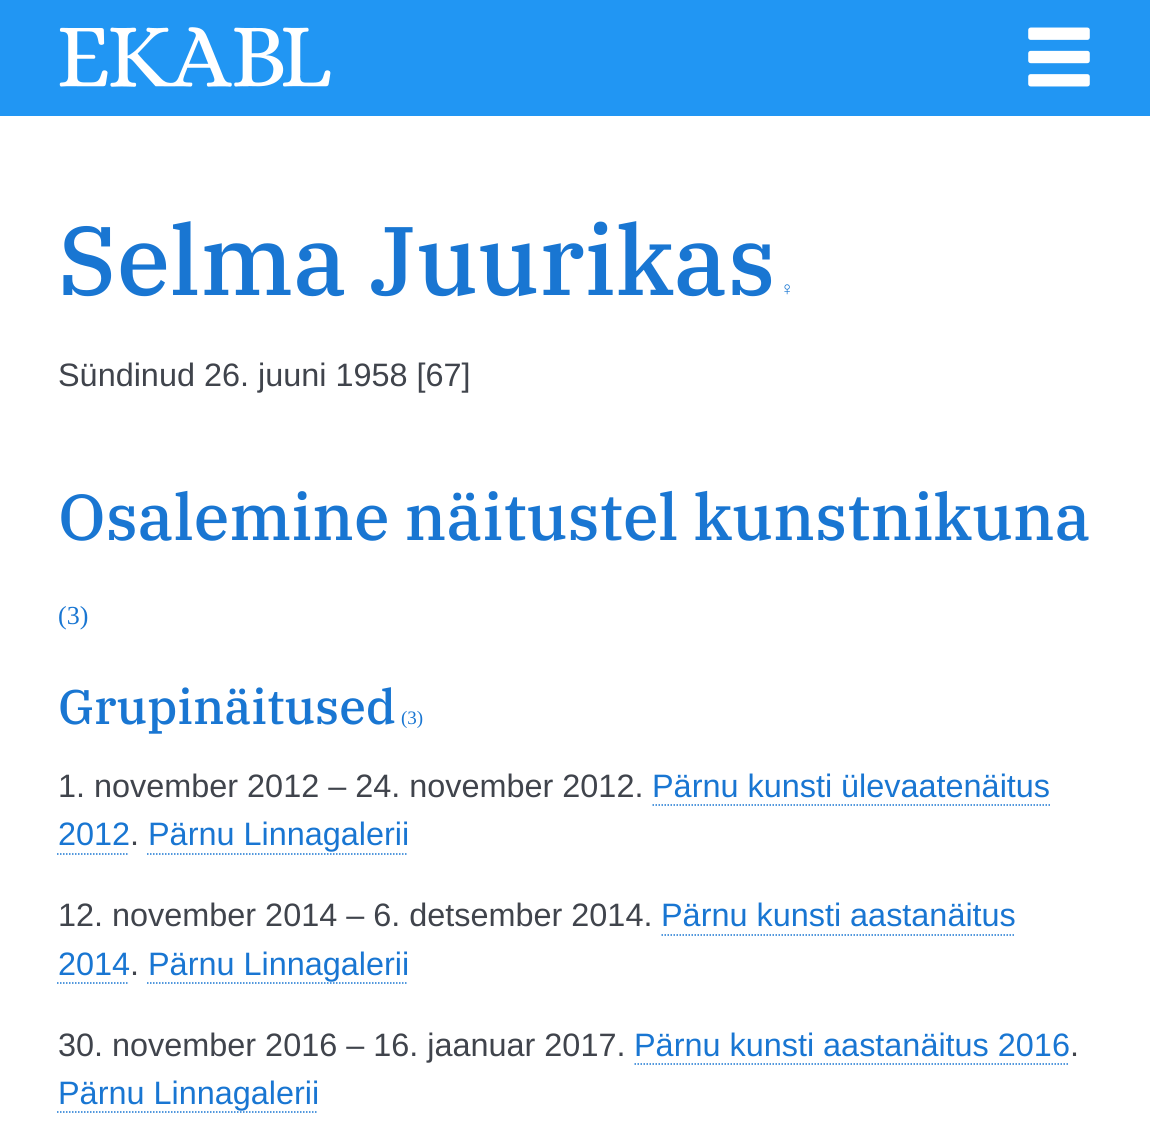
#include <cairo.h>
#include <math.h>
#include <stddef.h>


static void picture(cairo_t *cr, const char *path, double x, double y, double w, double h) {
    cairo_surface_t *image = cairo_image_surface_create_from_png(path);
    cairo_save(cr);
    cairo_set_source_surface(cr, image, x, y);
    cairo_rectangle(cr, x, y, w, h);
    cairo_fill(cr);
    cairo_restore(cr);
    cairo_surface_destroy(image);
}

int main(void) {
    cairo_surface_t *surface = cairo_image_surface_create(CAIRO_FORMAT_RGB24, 1150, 1135);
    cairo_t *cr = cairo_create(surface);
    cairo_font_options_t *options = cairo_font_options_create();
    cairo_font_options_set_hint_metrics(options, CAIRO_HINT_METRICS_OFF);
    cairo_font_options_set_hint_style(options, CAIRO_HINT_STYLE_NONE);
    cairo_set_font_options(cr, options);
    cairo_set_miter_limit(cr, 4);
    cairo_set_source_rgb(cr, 1, 1, 1);
    cairo_paint(cr);
    cairo_set_source_rgb(cr, 0.129, 0.588, 0.953);
    cairo_rectangle(cr, 0, 0, 1150, 116);
    cairo_fill(cr);
    picture(cr, "img1.png", 59, 27, 272, 60);
    picture(cr, "img2.png", 1028, 27, 62, 60);
    cairo_select_font_face(cr, "IBM Plex Serif Medium", CAIRO_FONT_SLANT_NORMAL, CAIRO_FONT_WEIGHT_NORMAL);
    cairo_set_font_size(cr, 97.25);
    cairo_set_source_rgb(cr, 0.098, 0.463, 0.824);
    cairo_move_to(cr, 58, 295);
    cairo_show_text(cr, "Selma Juurikas");
    cairo_select_font_face(cr, "Liberation Serif", CAIRO_FONT_SLANT_NORMAL, CAIRO_FONT_WEIGHT_NORMAL);
    cairo_set_font_size(cr, 19);
    cairo_move_to(cr, 780, 295);
    cairo_show_text(cr, "♀");
    cairo_select_font_face(cr, "Liberation Sans", CAIRO_FONT_SLANT_NORMAL, CAIRO_FONT_WEIGHT_NORMAL);
    cairo_set_font_size(cr, 32.4);
    cairo_set_source_rgb(cr, 0.251, 0.267, 0.298);
    cairo_move_to(cr, 58, 386);
    cairo_show_text(cr, "Sündinud 26. juuni 1958 [67]");
    cairo_select_font_face(cr, "IBM Plex Serif Medium", CAIRO_FONT_SLANT_NORMAL, CAIRO_FONT_WEIGHT_NORMAL);
    cairo_set_font_size(cr, 64.75);
    cairo_set_source_rgb(cr, 0.098, 0.463, 0.824);
    cairo_move_to(cr, 58, 540);
    cairo_show_text(cr, "Osalemine näitustel kunstnikuna");
    cairo_select_font_face(cr, "Liberation Serif", CAIRO_FONT_SLANT_NORMAL, CAIRO_FONT_WEIGHT_NORMAL);
    cairo_set_font_size(cr, 26);
    cairo_move_to(cr, 58, 624);
    cairo_show_text(cr, "(3)");
    cairo_select_font_face(cr, "IBM Plex Serif Medium", CAIRO_FONT_SLANT_NORMAL, CAIRO_FONT_WEIGHT_NORMAL);
    cairo_set_font_size(cr, 48.5);
    cairo_move_to(cr, 58, 724);
    cairo_show_text(cr, "Grupinäitused");
    cairo_select_font_face(cr, "Liberation Serif", CAIRO_FONT_SLANT_NORMAL, CAIRO_FONT_WEIGHT_NORMAL);
    cairo_set_font_size(cr, 19);
    cairo_move_to(cr, 401, 724);
    cairo_show_text(cr, "(3)");
    cairo_select_font_face(cr, "Liberation Sans", CAIRO_FONT_SLANT_NORMAL, CAIRO_FONT_WEIGHT_NORMAL);
    cairo_set_font_size(cr, 32.4);
    cairo_set_source_rgb(cr, 0.251, 0.267, 0.298);
    cairo_move_to(cr, 58, 797);
    cairo_show_text(cr, "1. november 2012 – 24. november 2012.");
    cairo_set_source_rgb(cr, 0.098, 0.463, 0.824);
    cairo_move_to(cr, 652, 797);
    cairo_show_text(cr, "Pärnu kunsti ülevaatenäitus");
    cairo_new_path(cr);
    cairo_move_to(cr, 652.5, 805);
    cairo_line_to(cr, 1050, 805);
    cairo_set_line_width(cr, 1.5);
    cairo_set_dash(cr, (double[]){1.5, 1.5}, 2, 0);
    cairo_stroke(cr);
    cairo_move_to(cr, 58, 845);
    cairo_show_text(cr, "2012");
    cairo_new_path(cr);
    cairo_move_to(cr, 57, 854);
    cairo_line_to(cr, 129, 854);
    cairo_stroke(cr);
    cairo_set_source_rgb(cr, 0.251, 0.267, 0.298);
    cairo_move_to(cr, 130, 845);
    cairo_show_text(cr, ".");
    cairo_set_source_rgb(cr, 0.098, 0.463, 0.824);
    cairo_move_to(cr, 148, 845);
    cairo_show_text(cr, "Pärnu Linnagalerii");
    cairo_new_path(cr);
    cairo_move_to(cr, 147, 854);
    cairo_line_to(cr, 408, 854);
    cairo_stroke(cr);
    cairo_set_source_rgb(cr, 0.251, 0.267, 0.298);
    cairo_move_to(cr, 58, 926);
    cairo_show_text(cr, "12. november 2014 – 6. detsember 2014.");
    cairo_set_source_rgb(cr, 0.098, 0.463, 0.824);
    cairo_move_to(cr, 661, 926);
    cairo_show_text(cr, "Pärnu kunsti aastanäitus");
    cairo_new_path(cr);
    cairo_move_to(cr, 661.5, 935);
    cairo_line_to(cr, 1015.5, 935);
    cairo_stroke(cr);
    cairo_move_to(cr, 58, 975);
    cairo_show_text(cr, "2014");
    cairo_new_path(cr);
    cairo_move_to(cr, 57, 983);
    cairo_line_to(cr, 129, 983);
    cairo_stroke(cr);
    cairo_set_source_rgb(cr, 0.251, 0.267, 0.298);
    cairo_move_to(cr, 130, 975);
    cairo_show_text(cr, ".");
    cairo_set_source_rgb(cr, 0.098, 0.463, 0.824);
    cairo_move_to(cr, 148, 975);
    cairo_show_text(cr, "Pärnu Linnagalerii");
    cairo_new_path(cr);
    cairo_move_to(cr, 147, 983);
    cairo_line_to(cr, 408, 983);
    cairo_stroke(cr);
    cairo_set_source_rgb(cr, 0.251, 0.267, 0.298);
    cairo_move_to(cr, 58, 1056);
    cairo_show_text(cr, "30. november 2016 – 16. jaanuar 2017.");
    cairo_set_source_rgb(cr, 0.098, 0.463, 0.824);
    cairo_move_to(cr, 634, 1056);
    cairo_show_text(cr, "Pärnu kunsti aastanäitus 2016");
    cairo_new_path(cr);
    cairo_move_to(cr, 634.5, 1064);
    cairo_line_to(cr, 1069.5, 1064);
    cairo_stroke(cr);
    cairo_set_source_rgb(cr, 0.251, 0.267, 0.298);
    cairo_move_to(cr, 1070, 1056);
    cairo_show_text(cr, ".");
    cairo_set_source_rgb(cr, 0.098, 0.463, 0.824);
    cairo_move_to(cr, 58, 1104);
    cairo_show_text(cr, "Pärnu Linnagalerii");
    cairo_new_path(cr);
    cairo_move_to(cr, 57, 1112);
    cairo_line_to(cr, 318, 1112);
    cairo_stroke(cr);
    cairo_surface_write_to_png(surface, "page.png");
    cairo_font_options_destroy(options);
    cairo_destroy(cr);
    cairo_surface_destroy(surface);
    return 0;
}
